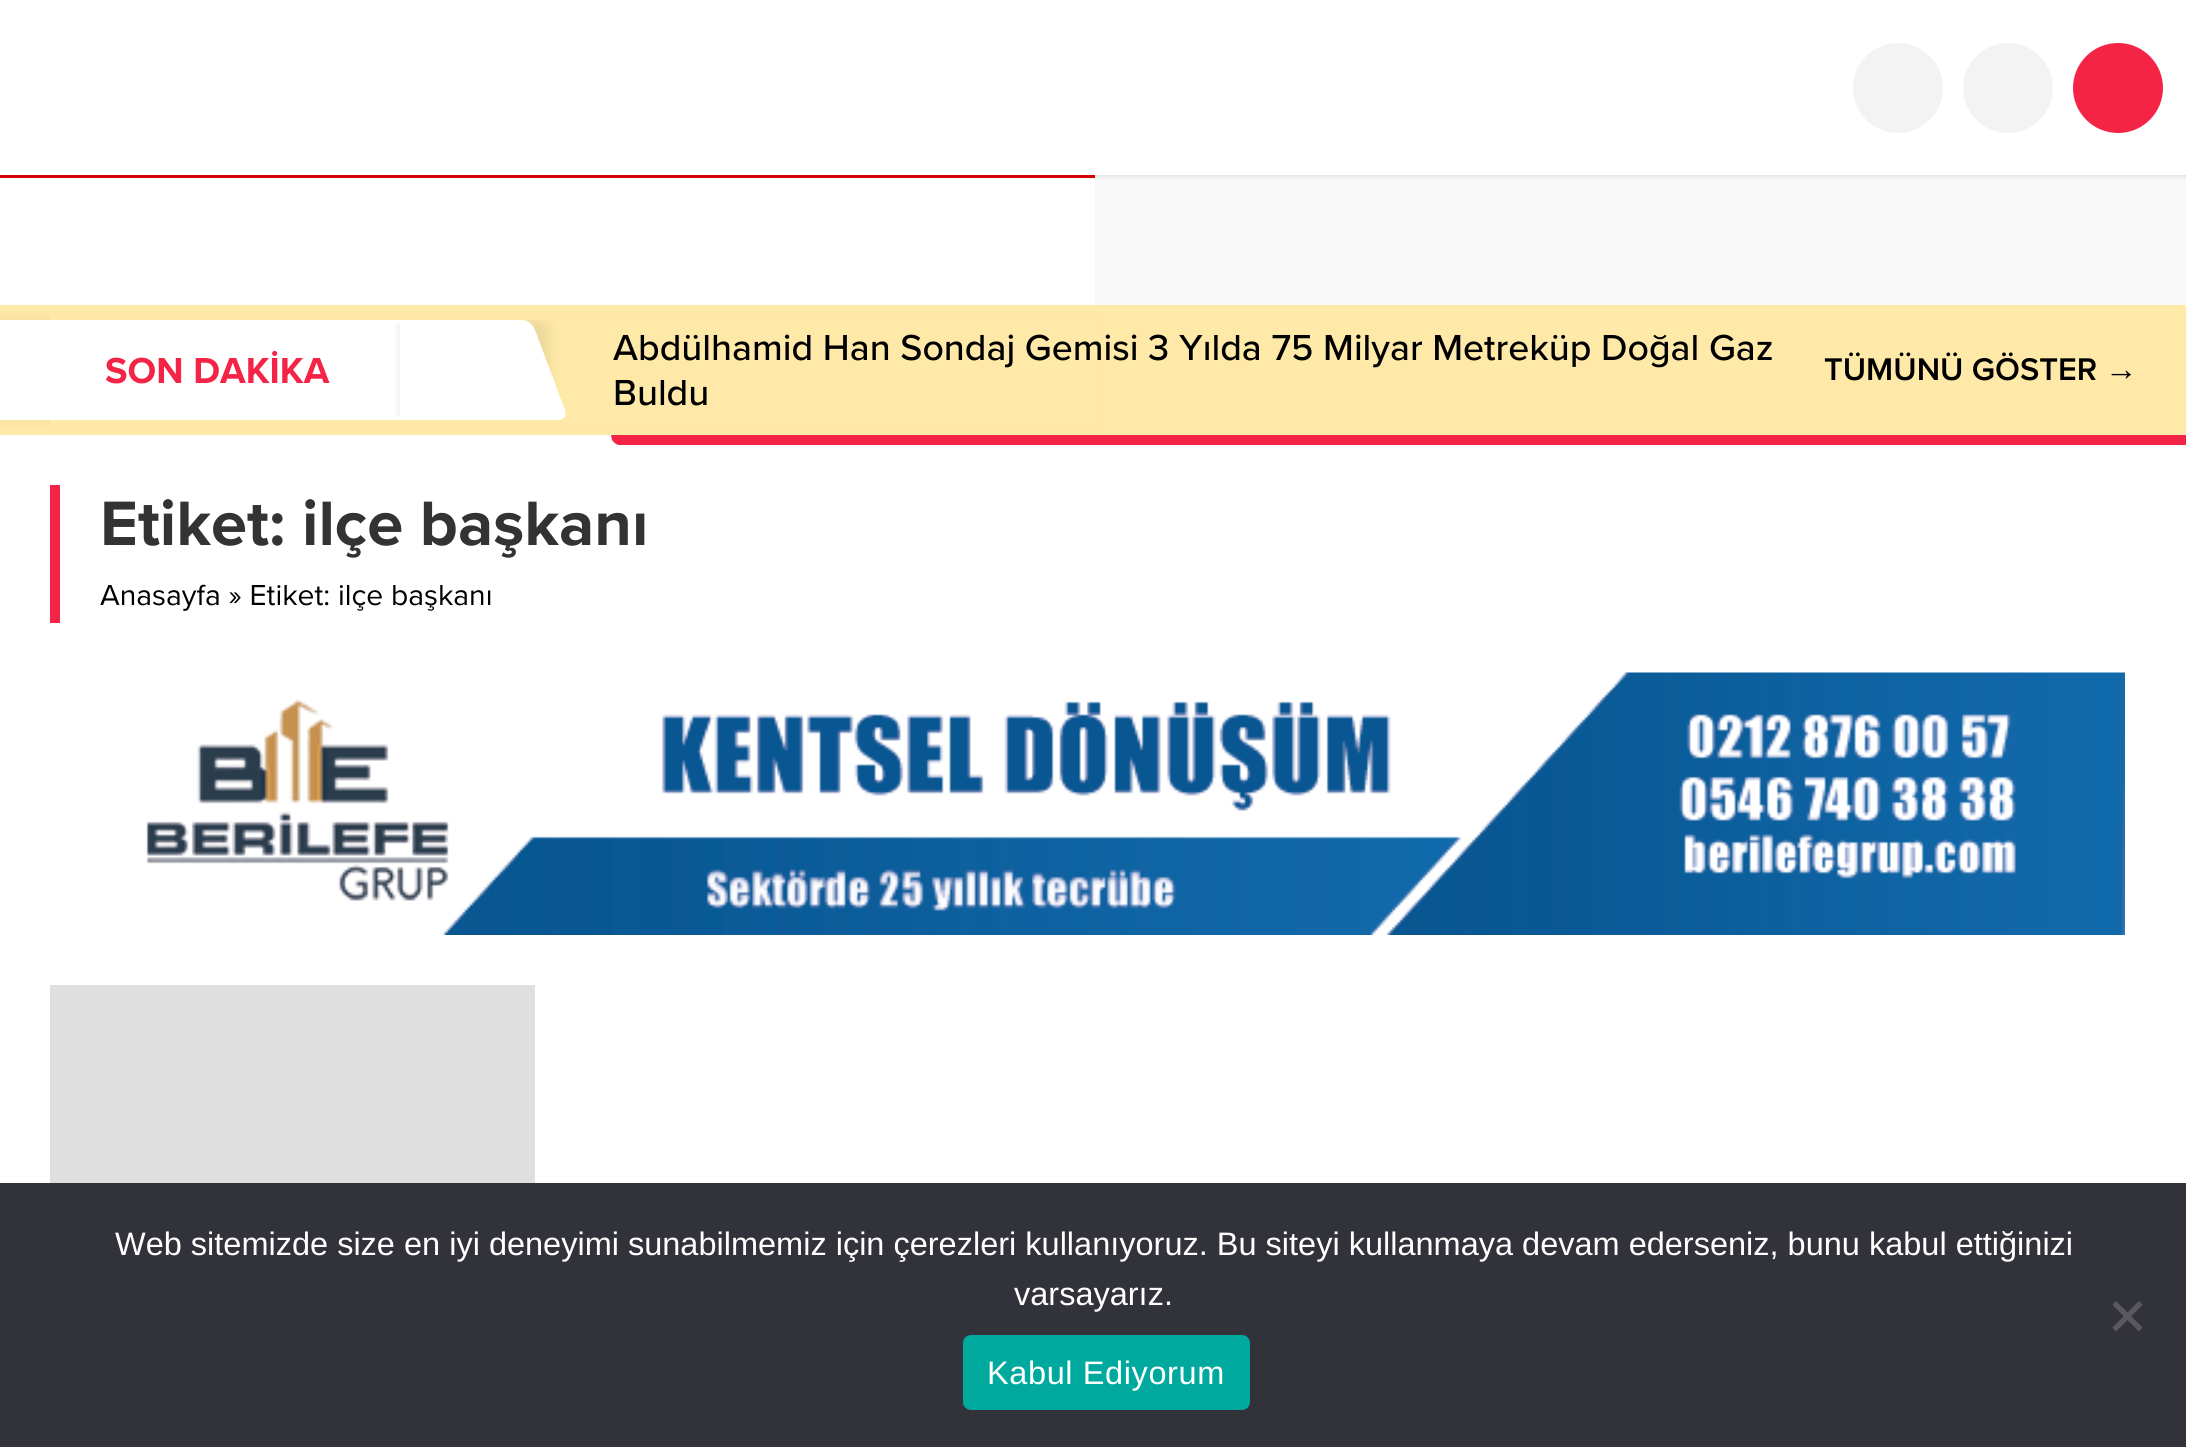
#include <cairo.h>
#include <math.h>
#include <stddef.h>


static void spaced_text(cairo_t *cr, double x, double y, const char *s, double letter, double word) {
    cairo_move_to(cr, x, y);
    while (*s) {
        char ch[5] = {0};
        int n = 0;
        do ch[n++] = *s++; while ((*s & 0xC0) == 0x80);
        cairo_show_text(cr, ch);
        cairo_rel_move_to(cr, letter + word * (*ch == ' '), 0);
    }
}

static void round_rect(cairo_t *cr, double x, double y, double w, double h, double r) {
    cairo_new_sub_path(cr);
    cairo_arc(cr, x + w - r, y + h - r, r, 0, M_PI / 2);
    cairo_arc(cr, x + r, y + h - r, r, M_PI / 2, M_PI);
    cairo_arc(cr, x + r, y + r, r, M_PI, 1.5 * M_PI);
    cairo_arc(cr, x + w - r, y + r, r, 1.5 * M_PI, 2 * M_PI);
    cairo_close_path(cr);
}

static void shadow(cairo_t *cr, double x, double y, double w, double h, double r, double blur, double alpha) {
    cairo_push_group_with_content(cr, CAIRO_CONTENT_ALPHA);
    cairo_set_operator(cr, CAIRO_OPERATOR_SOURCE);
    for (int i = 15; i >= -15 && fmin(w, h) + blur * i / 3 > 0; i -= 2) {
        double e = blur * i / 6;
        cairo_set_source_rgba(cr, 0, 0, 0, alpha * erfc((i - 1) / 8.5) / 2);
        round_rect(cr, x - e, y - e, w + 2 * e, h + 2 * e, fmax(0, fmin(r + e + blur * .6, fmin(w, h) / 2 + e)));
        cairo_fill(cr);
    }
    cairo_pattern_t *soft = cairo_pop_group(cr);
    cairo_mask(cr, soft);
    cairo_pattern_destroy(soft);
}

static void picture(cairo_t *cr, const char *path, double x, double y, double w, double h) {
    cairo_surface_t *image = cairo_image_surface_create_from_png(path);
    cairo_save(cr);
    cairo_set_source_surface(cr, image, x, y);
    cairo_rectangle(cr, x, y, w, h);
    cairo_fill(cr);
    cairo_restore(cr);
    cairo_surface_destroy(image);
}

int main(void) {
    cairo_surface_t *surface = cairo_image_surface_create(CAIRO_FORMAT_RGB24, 2186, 1447);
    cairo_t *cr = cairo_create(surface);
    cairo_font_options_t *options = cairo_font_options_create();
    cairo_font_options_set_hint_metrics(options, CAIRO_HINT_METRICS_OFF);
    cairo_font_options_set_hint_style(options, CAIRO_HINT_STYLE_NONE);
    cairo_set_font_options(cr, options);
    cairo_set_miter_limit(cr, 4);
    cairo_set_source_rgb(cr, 1, 1, 1);
    cairo_paint(cr);
    cairo_set_source_rgb(cr, 0.875, 0, 0);
    cairo_rectangle(cr, 0, 175, 1095, 3);
    cairo_fill(cr);
    cairo_set_source_rgb(cr, 1, 0.914, 0.659);
    cairo_rectangle(cr, 0, 305, 2186, 130);
    cairo_fill(cr);
    cairo_set_source_rgb(cr, 0, 0, 0);
    shadow(cr, 0, 320, 1095, 100, 0, 6, 0.07);
    cairo_set_source_rgb(cr, 0.976, 0.976, 0.976);
    cairo_rectangle(cr, 1095, 175, 1091, 130);
    cairo_fill(cr);
    cairo_save(cr);
    cairo_rectangle(cr, 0, 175, 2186, 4);
    cairo_clip(cr);
    cairo_set_source_rgb(cr, 0, 0, 0);
    shadow(cr, 0, 0, 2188, 175, 0, 4, 0.15);
    cairo_restore(cr);
    cairo_set_source_rgb(cr, 0.953, 0.953, 0.953);
    cairo_arc(cr, 1898, 88, 45, 0, 2 * M_PI);
    cairo_fill(cr);
    cairo_arc(cr, 2008, 88, 45, 0, 2 * M_PI);
    cairo_fill(cr);
    cairo_set_source_rgb(cr, 0.957, 0.141, 0.278);
    cairo_arc(cr, 2118, 88, 45, 0, 2 * M_PI);
    cairo_fill(cr);
    cairo_set_source_rgb(cr, 1, 0.914, 0.659);
    cairo_rectangle(cr, 50, 314, 1051, 112);
    cairo_fill(cr);
    cairo_save(cr);
    cairo_rectangle(cr, 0, 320, 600, 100);
    cairo_clip(cr);
    cairo_set_source_rgb(cr, 0, 0, 0);
    shadow(cr, -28, 320, 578, 100, 10, 6, 0.07);
    cairo_restore(cr);
    cairo_set_source_rgb(cr, 1, 1, 1);
    cairo_new_path(cr);
    cairo_move_to(cr, -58, 320);
    cairo_line_to(cr, 522, 320);
    cairo_curve_to(cr, 527, 320, 533, 324, 535, 330);
    cairo_line_to(cr, 565, 410);
    cairo_curve_to(cr, 567, 416, 564, 420, 558, 420);
    cairo_line_to(cr, -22, 420);
    cairo_curve_to(cr, -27, 420, -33, 416, -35, 410);
    cairo_line_to(cr, -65, 330);
    cairo_curve_to(cr, -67, 324, -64, 320, -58, 320);
    cairo_close_path(cr);
    cairo_fill(cr);
    cairo_select_font_face(cr, "Proxima Nova", CAIRO_FONT_SLANT_NORMAL, CAIRO_FONT_WEIGHT_BOLD);
    cairo_set_font_size(cr, 37.5);
    cairo_set_source_rgb(cr, 0.957, 0.141, 0.278);
    cairo_move_to(cr, 105, 383);
    cairo_show_text(cr, "SON DAKİKA");
    cairo_save(cr);
    cairo_rectangle(cr, 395, 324, 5, 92);
    cairo_clip(cr);
    cairo_set_source_rgb(cr, 0, 0, 0);
    shadow(cr, 400, 325, 125, 90, 0, 6, 0.1);
    cairo_restore(cr);
    cairo_select_font_face(cr, "Proxima Nova Medium", CAIRO_FONT_SLANT_NORMAL, CAIRO_FONT_WEIGHT_NORMAL);
    cairo_set_source_rgb(cr, 0, 0, 0);
    cairo_move_to(cr, 613, 360);
    cairo_show_text(cr, "Abdülhamid Han Sondaj Gemisi 3 Yılda 75 Milyar Metreküp Doğal Gaz");
    cairo_move_to(cr, 613, 405);
    cairo_show_text(cr, "Buldu");
    cairo_set_source_rgb(cr, 0.957, 0.141, 0.278);
    cairo_new_path(cr);
    cairo_move_to(cr, 611, 435);
    cairo_line_to(cr, 1809, 435);
    cairo_line_to(cr, 1813, 445);
    cairo_line_to(cr, 619, 445);
    cairo_curve_to(cr, 617, 445, 614, 443, 612, 440);
    cairo_close_path(cr);
    cairo_fill(cr);
    cairo_select_font_face(cr, "Proxima Nova SemiBold", CAIRO_FONT_SLANT_NORMAL, CAIRO_FONT_WEIGHT_NORMAL);
    cairo_set_font_size(cr, 32.5);
    cairo_set_source_rgb(cr, 0, 0, 0);
    cairo_move_to(cr, 1824, 380);
    cairo_show_text(cr, "TÜMÜNÜ GÖSTER");
    cairo_select_font_face(cr, "Liberation Sans", CAIRO_FONT_SLANT_NORMAL, CAIRO_FONT_WEIGHT_BOLD);
    cairo_move_to(cr, 2105, 380);
    cairo_show_text(cr, "→");
    cairo_set_source_rgb(cr, 0.957, 0.141, 0.278);
    cairo_rectangle(cr, 1809, 435, 377, 10);
    cairo_fill(cr);
    cairo_rectangle(cr, 50, 485, 10, 138);
    cairo_fill(cr);
    cairo_select_font_face(cr, "Proxima Nova", CAIRO_FONT_SLANT_NORMAL, CAIRO_FONT_WEIGHT_BOLD);
    cairo_set_font_size(cr, 65);
    cairo_set_source_rgb(cr, 0.2, 0.2, 0.2);
    cairo_move_to(cr, 100, 545);
    cairo_show_text(cr, "Etiket: ilçe başkanı");
    cairo_select_font_face(cr, "Proxima Nova", CAIRO_FONT_SLANT_NORMAL, CAIRO_FONT_WEIGHT_NORMAL);
    cairo_set_font_size(cr, 30);
    cairo_set_source_rgb(cr, 0, 0, 0);
    cairo_move_to(cr, 100, 605);
    cairo_show_text(cr, "Anasayfa » Etiket: ilçe başkanı");
    picture(cr, "img1.png", 146, 672, 1979, 263);
    cairo_set_source_rgb(cr, 0.875, 0.875, 0.875);
    cairo_rectangle(cr, 50, 985, 485, 198);
    cairo_fill(cr);
    cairo_set_source_rgb(cr, 0.196, 0.196, 0.227);
    cairo_rectangle(cr, 0, 1183, 2186, 264);
    cairo_fill(cr);
    cairo_select_font_face(cr, "Liberation Sans", CAIRO_FONT_SLANT_NORMAL, CAIRO_FONT_WEIGHT_NORMAL);
    cairo_set_font_size(cr, 32.5);
    cairo_set_source_rgb(cr, 1, 1, 1);
    cairo_move_to(cr, 115, 1255);
    cairo_show_text(cr, "Web sitemizde size en iyi deneyimi sunabilmemiz için çerezleri kullanıyoruz. Bu siteyi kullanmaya devam ederseniz, bunu kabul ettiğinizi");
    cairo_move_to(cr, 1014, 1305);
    cairo_show_text(cr, "varsayarız.");
    cairo_set_source_rgb(cr, 0.349, 0.349, 0.365);
    cairo_new_path(cr);
    cairo_move_to(cr, 2139, 1301);
    cairo_line_to(cr, 2142.5, 1305);
    cairo_line_to(cr, 2116, 1331.5);
    cairo_line_to(cr, 2112.5, 1327.5);
    cairo_close_path(cr);
    cairo_fill(cr);
    cairo_new_path(cr);
    cairo_move_to(cr, 2112.5, 1305);
    cairo_line_to(cr, 2116, 1301);
    cairo_line_to(cr, 2142.5, 1327.5);
    cairo_line_to(cr, 2139, 1331.5);
    cairo_close_path(cr);
    cairo_fill(cr);
    cairo_set_source_rgb(cr, 0, 0.663, 0.616);
    round_rect(cr, 963, 1335, 287, 75, 8);
    cairo_fill(cr);
    cairo_set_source_rgb(cr, 1, 1, 1);
    spaced_text(cr, 987, 1384, "Kabul Ediyorum", 0.6, 0);
    cairo_surface_write_to_png(surface, "page.png");
    cairo_font_options_destroy(options);
    cairo_destroy(cr);
    cairo_surface_destroy(surface);
    return 0;
}
